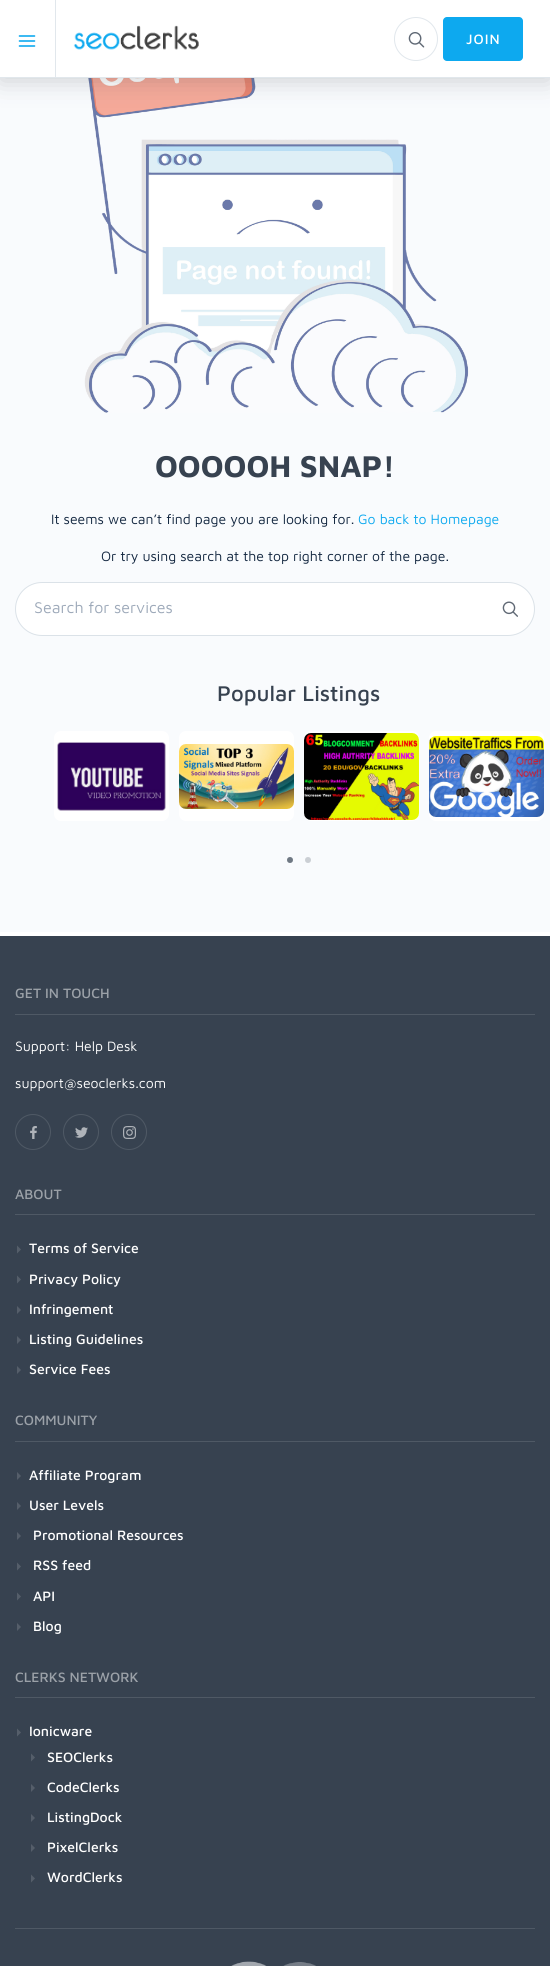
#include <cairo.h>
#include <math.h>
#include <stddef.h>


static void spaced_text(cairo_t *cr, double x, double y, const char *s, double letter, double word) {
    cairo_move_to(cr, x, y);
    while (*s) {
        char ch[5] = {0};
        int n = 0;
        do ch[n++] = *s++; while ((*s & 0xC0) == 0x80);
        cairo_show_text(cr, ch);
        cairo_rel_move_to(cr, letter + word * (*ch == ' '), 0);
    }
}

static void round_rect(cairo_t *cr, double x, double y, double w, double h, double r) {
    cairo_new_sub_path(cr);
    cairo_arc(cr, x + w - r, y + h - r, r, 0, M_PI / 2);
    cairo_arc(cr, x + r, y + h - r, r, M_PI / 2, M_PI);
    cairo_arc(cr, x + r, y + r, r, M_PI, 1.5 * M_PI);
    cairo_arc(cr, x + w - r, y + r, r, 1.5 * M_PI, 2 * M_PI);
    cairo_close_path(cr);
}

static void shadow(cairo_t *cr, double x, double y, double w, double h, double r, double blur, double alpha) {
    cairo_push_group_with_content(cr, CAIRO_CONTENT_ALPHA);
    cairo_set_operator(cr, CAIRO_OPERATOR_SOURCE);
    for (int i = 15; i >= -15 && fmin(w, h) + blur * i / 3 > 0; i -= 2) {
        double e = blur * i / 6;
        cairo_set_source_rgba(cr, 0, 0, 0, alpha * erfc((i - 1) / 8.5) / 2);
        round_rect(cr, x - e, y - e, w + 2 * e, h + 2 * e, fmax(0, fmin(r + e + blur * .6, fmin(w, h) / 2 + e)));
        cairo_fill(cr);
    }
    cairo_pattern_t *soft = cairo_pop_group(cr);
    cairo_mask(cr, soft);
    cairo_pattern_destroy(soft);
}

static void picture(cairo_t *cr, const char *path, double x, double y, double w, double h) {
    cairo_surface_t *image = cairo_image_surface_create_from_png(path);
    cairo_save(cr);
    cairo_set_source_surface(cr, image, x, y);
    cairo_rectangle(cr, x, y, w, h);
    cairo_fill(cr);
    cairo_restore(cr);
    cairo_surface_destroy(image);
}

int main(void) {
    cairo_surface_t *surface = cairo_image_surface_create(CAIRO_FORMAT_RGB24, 550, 1966);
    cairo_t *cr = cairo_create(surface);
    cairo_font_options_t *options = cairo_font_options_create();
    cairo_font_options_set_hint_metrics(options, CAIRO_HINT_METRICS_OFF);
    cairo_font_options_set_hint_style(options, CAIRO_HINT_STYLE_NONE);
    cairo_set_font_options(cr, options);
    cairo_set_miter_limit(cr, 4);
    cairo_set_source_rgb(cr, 1, 1, 1);
    cairo_paint(cr);
    cairo_set_source_rgb(cr, 0.976, 0.984, 0.992);
    cairo_rectangle(cr, 0, 78, 550, 854);
    cairo_fill(cr);
    picture(cr, "img4.png", 84, 78, 385, 335);
    cairo_set_source_rgb(cr, 0.184, 0.22, 0.267);
    shadow(cr, 0, 3, 550, 78, 0, 12.5, 0.22);
    cairo_set_source_rgb(cr, 1, 1, 1);
    cairo_rectangle(cr, 0, 0, 550, 77);
    cairo_fill(cr);
    cairo_set_source_rgb(cr, 0.882, 0.906, 0.925);
    cairo_rectangle(cr, 0, 77, 550, 1);
    cairo_fill(cr);
    cairo_rectangle(cr, 55, 0, 1, 77);
    cairo_fill(cr);
    picture(cr, "img1.png", 18, 35, 18, 12);
    picture(cr, "img2.png", 73, 25, 126, 25);
    cairo_arc(cr, 416, 39, 21.5, 0, 2 * M_PI);
    cairo_set_line_width(cr, 1);
    cairo_stroke(cr);
    picture(cr, "img3.png", 408, 32, 17, 16);
    cairo_set_source_rgb(cr, 0.051, 0.663, 0.937);
    round_rect(cr, 443, 17, 80, 44, 4);
    cairo_fill(cr);
    cairo_select_font_face(cr, "Maven Pro Medium", CAIRO_FONT_SLANT_NORMAL, CAIRO_FONT_WEIGHT_NORMAL);
    cairo_set_font_size(cr, 14);
    cairo_set_source_rgb(cr, 1, 1, 1);
    spaced_text(cr, 466, 44, "JOIN", 1, 0);
    cairo_select_font_face(cr, "Maven Pro", CAIRO_FONT_SLANT_NORMAL, CAIRO_FONT_WEIGHT_BOLD);
    cairo_set_font_size(cr, 31);
    cairo_set_source_rgb(cr, 0.216, 0.259, 0.314);
    cairo_move_to(cr, 155, 477);
    cairo_show_text(cr, "OOOOOH SNAP!");
    cairo_select_font_face(cr, "Maven Pro", CAIRO_FONT_SLANT_NORMAL, CAIRO_FONT_WEIGHT_NORMAL);
    cairo_set_font_size(cr, 14);
    cairo_set_source_rgb(cr, 0.071, 0.149, 0.247);
    cairo_move_to(cr, 51, 524);
    cairo_show_text(cr, "It seems we can’t find page you are looking for.");
    cairo_set_source_rgb(cr, 0.051, 0.663, 0.937);
    cairo_move_to(cr, 358, 524);
    cairo_show_text(cr, "Go back to Homepage");
    cairo_set_source_rgb(cr, 0.071, 0.149, 0.247);
    cairo_move_to(cr, 101, 561);
    cairo_show_text(cr, "Or try using search at the top right corner of the page.");
    cairo_set_source_rgb(cr, 1, 1, 1);
    round_rect(cr, 15.5, 582.5, 519, 53, 26.5);
    cairo_fill_preserve(cr);
    cairo_set_source_rgb(cr, 0.859, 0.886, 0.91);
    cairo_stroke(cr);
    cairo_set_font_size(cr, 16);
    cairo_set_source_rgb(cr, 0.616, 0.663, 0.725);
    cairo_move_to(cr, 34, 613);
    cairo_show_text(cr, "Search for services");
    picture(cr, "img5.png", 502, 601, 16, 16);
    cairo_select_font_face(cr, "Maven Pro Medium", CAIRO_FONT_SLANT_NORMAL, CAIRO_FONT_WEIGHT_NORMAL);
    cairo_set_font_size(cr, 22);
    cairo_set_source_rgb(cr, 0.216, 0.259, 0.314);
    cairo_move_to(cr, 217, 701);
    cairo_show_text(cr, "Popular Listings");
    cairo_set_source_rgb(cr, 1, 1, 1);
    round_rect(cr, 54, 731, 115, 90, 7);
    cairo_fill(cr);
    picture(cr, "img6.png", 57, 742, 109, 69);
    round_rect(cr, 179, 731, 115, 90, 7);
    cairo_fill(cr);
    picture(cr, "img7.png", 179, 744, 115, 65);
    round_rect(cr, 304, 731, 115, 90, 7);
    cairo_fill(cr);
    picture(cr, "img8.png", 304, 733, 115, 87);
    round_rect(cr, 429, 731, 115, 90, 7);
    cairo_fill(cr);
    picture(cr, "img9.png", 429, 736, 115, 81);
    cairo_set_source_rgb(cr, 0.435, 0.471, 0.514);
    cairo_arc(cr, 290, 860, 3, 0, 2 * M_PI);
    cairo_fill(cr);
    cairo_set_source_rgb(cr, 0.796, 0.812, 0.831);
    cairo_arc(cr, 308, 860, 3, 0, 2 * M_PI);
    cairo_fill(cr);
    cairo_set_source_rgb(cr, 0.216, 0.259, 0.314);
    cairo_rectangle(cr, 0, 936, 550, 1030);
    cairo_fill(cr);
    cairo_set_source_rgb(cr, 0.31, 0.349, 0.396);
    cairo_rectangle(cr, 15, 1014, 520, 1);
    cairo_fill(cr);
    cairo_set_font_size(cr, 14);
    cairo_set_source_rgb(cr, 0.608, 0.631, 0.659);
    cairo_move_to(cr, 15, 998);
    cairo_show_text(cr, "GET IN TOUCH");
    cairo_select_font_face(cr, "Maven Pro", CAIRO_FONT_SLANT_NORMAL, CAIRO_FONT_WEIGHT_NORMAL);
    cairo_set_source_rgb(cr, 1, 1, 1);
    cairo_move_to(cr, 15, 1051);
    cairo_show_text(cr, "Support: Help Desk");
    cairo_move_to(cr, 15, 1088);
    cairo_show_text(cr, "support@seoclerks.com");
    cairo_new_path(cr);
    cairo_arc(cr, 33, 1132, 17.5, 0, 2 * M_PI);
    cairo_set_source_rgb(cr, 0.31, 0.349, 0.396);
    cairo_stroke(cr);
    picture(cr, "img10.png", 30, 1126, 7, 13);
    cairo_arc(cr, 81, 1132, 17.5, 0, 2 * M_PI);
    cairo_stroke(cr);
    picture(cr, "img11.png", 75, 1127, 13, 11);
    cairo_arc(cr, 129, 1132, 17.5, 0, 2 * M_PI);
    cairo_stroke(cr);
    picture(cr, "img12.png", 123, 1126, 13, 13);
    cairo_rectangle(cr, 15, 1214, 520, 1);
    cairo_fill(cr);
    cairo_select_font_face(cr, "Maven Pro Medium", CAIRO_FONT_SLANT_NORMAL, CAIRO_FONT_WEIGHT_NORMAL);
    cairo_set_source_rgb(cr, 0.608, 0.631, 0.659);
    cairo_move_to(cr, 15, 1199);
    cairo_show_text(cr, "ABOUT");
    cairo_set_source_rgb(cr, 0.333, 0.369, 0.416);
    cairo_new_path(cr);
    cairo_move_to(cr, 17, 1253.5);
    cairo_line_to(cr, 17, 1245.5);
    cairo_line_to(cr, 21, 1249.5);
    cairo_close_path(cr);
    cairo_fill(cr);
    cairo_set_source_rgb(cr, 1, 1, 1);
    cairo_move_to(cr, 29, 1253);
    cairo_show_text(cr, "Terms of Service");
    cairo_set_source_rgb(cr, 0.333, 0.369, 0.416);
    cairo_new_path(cr);
    cairo_move_to(cr, 17, 1283.5);
    cairo_line_to(cr, 17, 1275.5);
    cairo_line_to(cr, 21, 1279.5);
    cairo_close_path(cr);
    cairo_fill(cr);
    cairo_set_source_rgb(cr, 1, 1, 1);
    cairo_move_to(cr, 29, 1284);
    cairo_show_text(cr, "Privacy Policy");
    cairo_set_source_rgb(cr, 0.333, 0.369, 0.416);
    cairo_new_path(cr);
    cairo_move_to(cr, 17, 1314);
    cairo_line_to(cr, 17, 1306);
    cairo_line_to(cr, 21, 1310);
    cairo_close_path(cr);
    cairo_fill(cr);
    cairo_set_source_rgb(cr, 1, 1, 1);
    cairo_move_to(cr, 29, 1314);
    cairo_show_text(cr, "Infringement");
    cairo_set_source_rgb(cr, 0.333, 0.369, 0.416);
    cairo_new_path(cr);
    cairo_move_to(cr, 17, 1344);
    cairo_line_to(cr, 17, 1336);
    cairo_line_to(cr, 21, 1340);
    cairo_close_path(cr);
    cairo_fill(cr);
    cairo_set_source_rgb(cr, 1, 1, 1);
    cairo_move_to(cr, 29, 1344);
    cairo_show_text(cr, "Listing Guidelines");
    cairo_set_source_rgb(cr, 0.333, 0.369, 0.416);
    cairo_new_path(cr);
    cairo_move_to(cr, 17, 1374);
    cairo_line_to(cr, 17, 1366);
    cairo_line_to(cr, 21, 1370);
    cairo_close_path(cr);
    cairo_fill(cr);
    cairo_set_source_rgb(cr, 1, 1, 1);
    cairo_move_to(cr, 29, 1374);
    cairo_show_text(cr, "Service Fees");
    cairo_set_source_rgb(cr, 0.31, 0.349, 0.396);
    cairo_rectangle(cr, 15, 1441, 520, 1);
    cairo_fill(cr);
    cairo_set_source_rgb(cr, 0.608, 0.631, 0.659);
    cairo_move_to(cr, 15, 1425);
    cairo_show_text(cr, "COMMUNITY");
    cairo_set_source_rgb(cr, 0.333, 0.369, 0.416);
    cairo_new_path(cr);
    cairo_move_to(cr, 17, 1480);
    cairo_line_to(cr, 17, 1472);
    cairo_line_to(cr, 21, 1476);
    cairo_close_path(cr);
    cairo_fill(cr);
    cairo_set_source_rgb(cr, 1, 1, 1);
    cairo_move_to(cr, 29, 1480);
    cairo_show_text(cr, "Affiliate Program");
    cairo_set_source_rgb(cr, 0.333, 0.369, 0.416);
    cairo_new_path(cr);
    cairo_move_to(cr, 17, 1510);
    cairo_line_to(cr, 17, 1502);
    cairo_line_to(cr, 21, 1506);
    cairo_close_path(cr);
    cairo_fill(cr);
    cairo_set_source_rgb(cr, 1, 1, 1);
    cairo_move_to(cr, 29, 1510);
    cairo_show_text(cr, "User Levels");
    cairo_set_source_rgb(cr, 0.333, 0.369, 0.416);
    cairo_new_path(cr);
    cairo_move_to(cr, 17, 1540);
    cairo_line_to(cr, 17, 1532);
    cairo_line_to(cr, 21, 1536);
    cairo_close_path(cr);
    cairo_fill(cr);
    cairo_set_source_rgb(cr, 1, 1, 1);
    cairo_move_to(cr, 33, 1540);
    cairo_show_text(cr, "Promotional Resources");
    cairo_set_source_rgb(cr, 0.333, 0.369, 0.416);
    cairo_new_path(cr);
    cairo_move_to(cr, 17, 1570.5);
    cairo_line_to(cr, 17, 1562.5);
    cairo_line_to(cr, 21, 1566.5);
    cairo_close_path(cr);
    cairo_fill(cr);
    cairo_set_source_rgb(cr, 1, 1, 1);
    cairo_move_to(cr, 33, 1570);
    cairo_show_text(cr, "RSS feed");
    cairo_set_source_rgb(cr, 0.333, 0.369, 0.416);
    cairo_new_path(cr);
    cairo_move_to(cr, 17, 1600.5);
    cairo_line_to(cr, 17, 1592.5);
    cairo_line_to(cr, 21, 1596.5);
    cairo_close_path(cr);
    cairo_fill(cr);
    cairo_set_source_rgb(cr, 1, 1, 1);
    cairo_move_to(cr, 33, 1601);
    cairo_show_text(cr, "API");
    cairo_set_source_rgb(cr, 0.333, 0.369, 0.416);
    cairo_new_path(cr);
    cairo_move_to(cr, 17, 1631);
    cairo_line_to(cr, 17, 1623);
    cairo_line_to(cr, 21, 1627);
    cairo_close_path(cr);
    cairo_fill(cr);
    cairo_set_source_rgb(cr, 1, 1, 1);
    cairo_move_to(cr, 33, 1631);
    cairo_show_text(cr, "Blog");
    cairo_set_source_rgb(cr, 0.31, 0.349, 0.396);
    cairo_rectangle(cr, 15, 1697, 520, 1);
    cairo_fill(cr);
    cairo_set_source_rgb(cr, 0.608, 0.631, 0.659);
    cairo_move_to(cr, 15, 1682);
    cairo_show_text(cr, "CLERKS NETWORK");
    cairo_set_source_rgb(cr, 0.333, 0.369, 0.416);
    cairo_new_path(cr);
    cairo_move_to(cr, 17, 1736.5);
    cairo_line_to(cr, 17, 1728.5);
    cairo_line_to(cr, 21, 1732.5);
    cairo_close_path(cr);
    cairo_fill(cr);
    cairo_set_source_rgb(cr, 1, 1, 1);
    cairo_move_to(cr, 29, 1736);
    cairo_show_text(cr, "Ionicware");
    cairo_set_source_rgb(cr, 0.333, 0.369, 0.416);
    cairo_new_path(cr);
    cairo_move_to(cr, 31, 1761.5);
    cairo_line_to(cr, 31, 1753.5);
    cairo_line_to(cr, 35, 1757.5);
    cairo_close_path(cr);
    cairo_fill(cr);
    cairo_set_source_rgb(cr, 1, 1, 1);
    cairo_move_to(cr, 47, 1762);
    cairo_show_text(cr, "SEOClerks");
    cairo_set_source_rgb(cr, 0.333, 0.369, 0.416);
    cairo_new_path(cr);
    cairo_move_to(cr, 31, 1792);
    cairo_line_to(cr, 31, 1784);
    cairo_line_to(cr, 35, 1788);
    cairo_close_path(cr);
    cairo_fill(cr);
    cairo_set_source_rgb(cr, 1, 1, 1);
    cairo_move_to(cr, 47, 1792);
    cairo_show_text(cr, "CodeClerks");
    cairo_set_source_rgb(cr, 0.333, 0.369, 0.416);
    cairo_new_path(cr);
    cairo_move_to(cr, 31, 1822);
    cairo_line_to(cr, 31, 1814);
    cairo_line_to(cr, 35, 1818);
    cairo_close_path(cr);
    cairo_fill(cr);
    cairo_set_source_rgb(cr, 1, 1, 1);
    cairo_move_to(cr, 47, 1822);
    cairo_show_text(cr, "ListingDock");
    cairo_set_source_rgb(cr, 0.333, 0.369, 0.416);
    cairo_new_path(cr);
    cairo_move_to(cr, 31, 1852);
    cairo_line_to(cr, 31, 1844);
    cairo_line_to(cr, 35, 1848);
    cairo_close_path(cr);
    cairo_fill(cr);
    cairo_set_source_rgb(cr, 1, 1, 1);
    cairo_move_to(cr, 47, 1852);
    cairo_show_text(cr, "PixelClerks");
    cairo_set_source_rgb(cr, 0.333, 0.369, 0.416);
    cairo_new_path(cr);
    cairo_move_to(cr, 31, 1882.5);
    cairo_line_to(cr, 31, 1874.5);
    cairo_line_to(cr, 35, 1878.5);
    cairo_close_path(cr);
    cairo_fill(cr);
    cairo_set_source_rgb(cr, 1, 1, 1);
    cairo_move_to(cr, 47, 1882);
    cairo_show_text(cr, "WordClerks");
    cairo_set_source_rgb(cr, 0.31, 0.349, 0.396);
    cairo_rectangle(cr, 15, 1928, 520, 1);
    cairo_fill(cr);
    picture(cr, "img13.png", 231, 1961, 85, 5);
    cairo_surface_write_to_png(surface, "page.png");
    cairo_font_options_destroy(options);
    cairo_destroy(cr);
    cairo_surface_destroy(surface);
    return 0;
}
